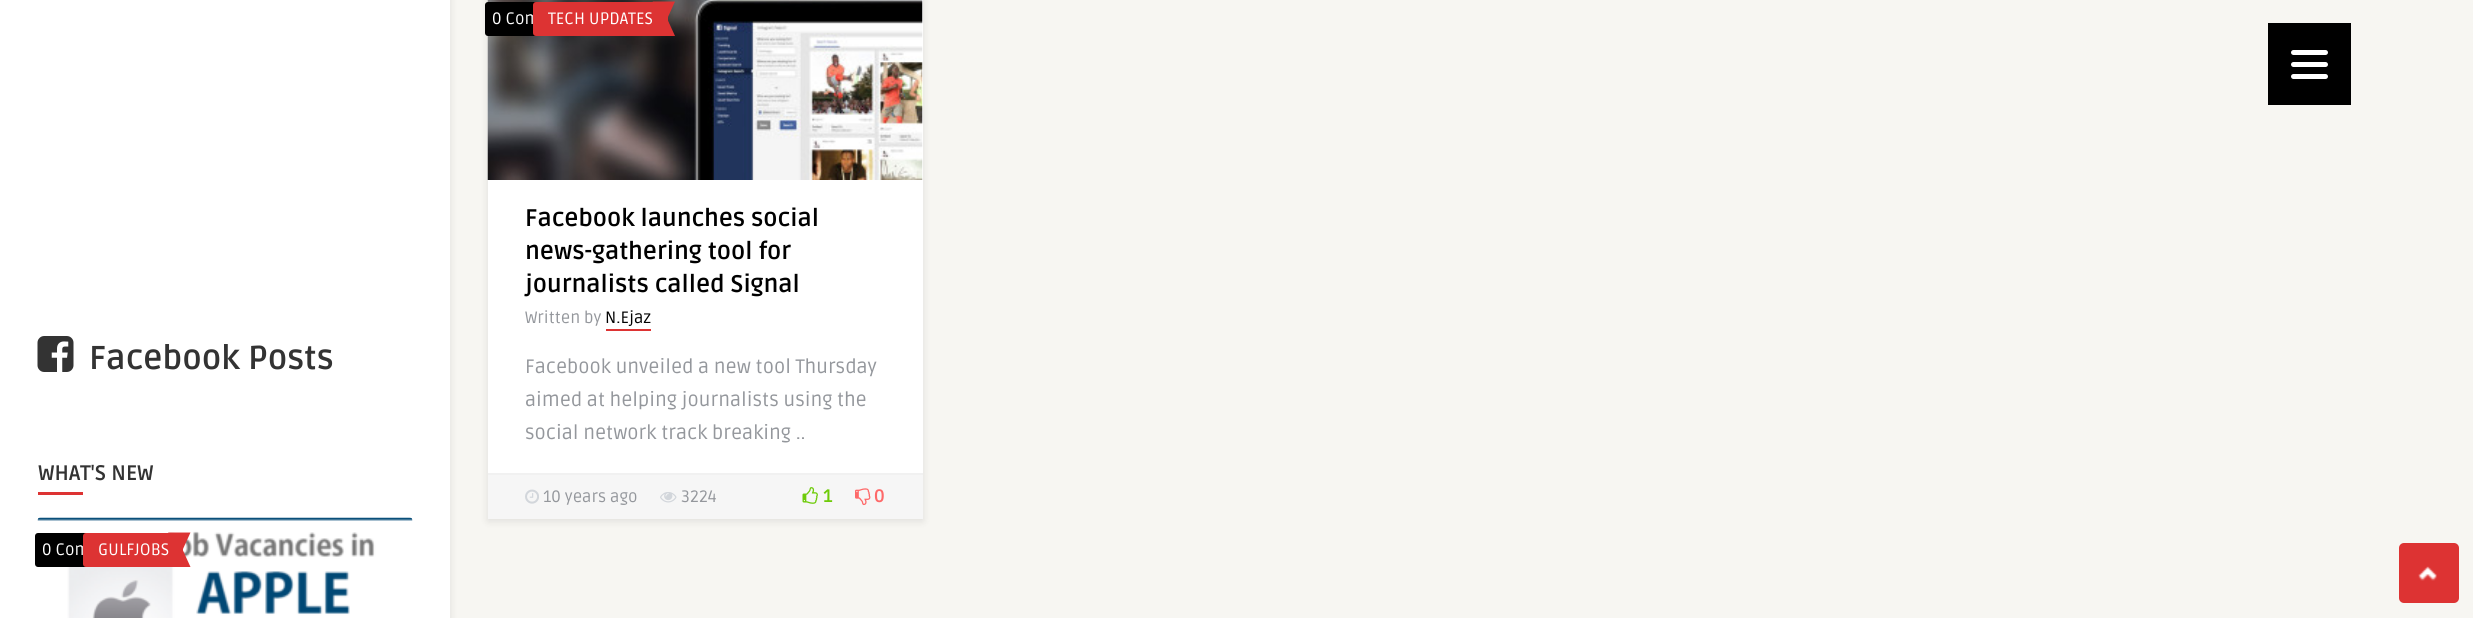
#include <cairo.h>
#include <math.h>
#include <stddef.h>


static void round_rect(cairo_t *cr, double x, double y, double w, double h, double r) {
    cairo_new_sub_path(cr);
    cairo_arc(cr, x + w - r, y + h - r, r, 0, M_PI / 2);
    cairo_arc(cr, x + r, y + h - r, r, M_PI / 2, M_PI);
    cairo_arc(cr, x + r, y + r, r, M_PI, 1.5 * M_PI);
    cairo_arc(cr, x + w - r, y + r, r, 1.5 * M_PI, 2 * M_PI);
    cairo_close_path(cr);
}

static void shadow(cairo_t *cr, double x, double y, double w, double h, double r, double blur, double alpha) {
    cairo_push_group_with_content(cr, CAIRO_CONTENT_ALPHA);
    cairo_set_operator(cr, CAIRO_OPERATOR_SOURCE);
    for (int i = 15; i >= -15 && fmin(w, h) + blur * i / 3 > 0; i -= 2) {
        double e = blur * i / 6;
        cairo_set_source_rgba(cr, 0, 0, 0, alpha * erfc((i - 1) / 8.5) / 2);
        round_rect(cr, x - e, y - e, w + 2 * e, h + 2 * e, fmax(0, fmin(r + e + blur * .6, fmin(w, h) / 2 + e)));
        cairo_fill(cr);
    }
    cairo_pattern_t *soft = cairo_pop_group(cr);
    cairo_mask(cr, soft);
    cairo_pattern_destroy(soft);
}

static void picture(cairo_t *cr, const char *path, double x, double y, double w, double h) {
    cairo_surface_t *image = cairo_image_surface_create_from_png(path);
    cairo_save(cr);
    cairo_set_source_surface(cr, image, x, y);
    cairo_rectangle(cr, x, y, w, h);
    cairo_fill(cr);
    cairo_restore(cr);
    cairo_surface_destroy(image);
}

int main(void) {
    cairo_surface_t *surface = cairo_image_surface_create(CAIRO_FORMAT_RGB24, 2473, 618);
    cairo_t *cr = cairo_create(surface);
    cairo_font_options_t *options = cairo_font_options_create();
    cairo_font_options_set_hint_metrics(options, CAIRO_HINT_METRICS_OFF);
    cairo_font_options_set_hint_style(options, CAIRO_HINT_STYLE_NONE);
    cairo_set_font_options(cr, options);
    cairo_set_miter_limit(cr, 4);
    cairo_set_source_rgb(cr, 0.965, 0.961, 0.949);
    cairo_paint(cr);
    cairo_set_source_rgb(cr, 0, 0, 0);
    shadow(cr, 0, -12, 450, 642, 0, 4, 0.1);
    cairo_set_source_rgb(cr, 1, 1, 1);
    cairo_rectangle(cr, 0, 0, 450, 618);
    cairo_fill(cr);
    picture(cr, "img1.png", 37, 336, 37, 36);
    cairo_select_font_face(cr, "Ruda", CAIRO_FONT_SLANT_NORMAL, CAIRO_FONT_WEIGHT_BOLD);
    cairo_set_font_size(cr, 33);
    cairo_set_source_rgb(cr, 0.2, 0.2, 0.2);
    cairo_move_to(cr, 89, 369);
    cairo_show_text(cr, "Facebook Posts");
    cairo_set_font_size(cr, 21);
    cairo_move_to(cr, 38, 480);
    cairo_show_text(cr, "WHAT'S NEW");
    cairo_set_source_rgb(cr, 0.867, 0.2, 0.2);
    cairo_rectangle(cr, 38, 492, 45, 3);
    cairo_fill(cr);
    picture(cr, "img2.png", 37, 517, 376, 101);
    cairo_set_source_rgb(cr, 0, 0, 0);
    round_rect(cr, 35, 533, 111, 34, 3);
    cairo_fill(cr);
    cairo_select_font_face(cr, "Ruda", CAIRO_FONT_SLANT_NORMAL, CAIRO_FONT_WEIGHT_NORMAL);
    cairo_set_font_size(cr, 16.5);
    cairo_set_source_rgb(cr, 1, 1, 1);
    cairo_move_to(cr, 42, 555);
    cairo_show_text(cr, "0 Com");
    cairo_set_source_rgb(cr, 0.867, 0.2, 0.2);
    round_rect(cr, 83, 533, 100, 34, 3);
    cairo_fill(cr);
    cairo_set_source_rgb(cr, 1, 1, 1);
    cairo_move_to(cr, 98, 555);
    cairo_show_text(cr, "GULFJOBS");
    cairo_set_source_rgb(cr, 0.867, 0.2, 0.2);
    cairo_new_path(cr);
    cairo_move_to(cr, 168, 532.5);
    cairo_line_to(cr, 190.5, 532.5);
    cairo_line_to(cr, 183, 549);
    cairo_close_path(cr);
    cairo_move_to(cr, 190.5, 567);
    cairo_line_to(cr, 168, 567);
    cairo_line_to(cr, 183, 550.5);
    cairo_close_path(cr);
    cairo_fill(cr);
    cairo_set_source_rgb(cr, 0, 0, 0);
    shadow(cr, 488, -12, 435, 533, 0, 4, 0.1);
    cairo_set_source_rgb(cr, 1, 1, 1);
    cairo_rectangle(cr, 488, 0, 435, 473);
    cairo_fill(cr);
    picture(cr, "img3.png", 487, 0, 436, 180);
    cairo_set_source_rgb(cr, 0, 0, 0);
    round_rect(cr, 485, 2, 111, 34, 3);
    cairo_fill(cr);
    cairo_set_source_rgb(cr, 1, 1, 1);
    cairo_move_to(cr, 492, 24);
    cairo_show_text(cr, "0 Com");
    cairo_set_source_rgb(cr, 0.867, 0.2, 0.2);
    round_rect(cr, 533, 2, 135, 34, 3);
    cairo_fill(cr);
    cairo_set_source_rgb(cr, 1, 1, 1);
    cairo_move_to(cr, 548, 24);
    cairo_show_text(cr, "TECH UPDATES");
    cairo_set_source_rgb(cr, 0.867, 0.2, 0.2);
    cairo_new_path(cr);
    cairo_move_to(cr, 652.5, 1.5);
    cairo_line_to(cr, 675, 1.5);
    cairo_line_to(cr, 667.5, 18);
    cairo_close_path(cr);
    cairo_move_to(cr, 675, 36);
    cairo_line_to(cr, 652.5, 36);
    cairo_line_to(cr, 667.5, 19.5);
    cairo_close_path(cr);
    cairo_fill(cr);
    cairo_select_font_face(cr, "Ruda", CAIRO_FONT_SLANT_NORMAL, CAIRO_FONT_WEIGHT_BOLD);
    cairo_set_font_size(cr, 24);
    cairo_set_source_rgb(cr, 0, 0, 0);
    cairo_move_to(cr, 525, 226);
    cairo_show_text(cr, "Facebook launches social");
    cairo_move_to(cr, 525, 259);
    cairo_show_text(cr, "news-gathering tool for");
    cairo_move_to(cr, 525, 292);
    cairo_show_text(cr, "journalists called Signal");
    cairo_select_font_face(cr, "Ruda", CAIRO_FONT_SLANT_NORMAL, CAIRO_FONT_WEIGHT_NORMAL);
    cairo_set_font_size(cr, 16.5);
    cairo_set_source_rgb(cr, 0.58, 0.592, 0.612);
    cairo_move_to(cr, 525, 323);
    cairo_show_text(cr, "Written by");
    cairo_set_source_rgb(cr, 0, 0, 0);
    cairo_move_to(cr, 605, 323);
    cairo_show_text(cr, "N.Ejaz");
    cairo_set_source_rgb(cr, 0.867, 0.2, 0.2);
    cairo_rectangle(cr, 606, 329, 45, 2);
    cairo_fill(cr);
    cairo_set_font_size(cr, 19.5);
    cairo_set_source_rgb(cr, 0.58, 0.592, 0.612);
    cairo_move_to(cr, 525, 373);
    cairo_show_text(cr, "Facebook unveiled a new tool Thursday");
    cairo_move_to(cr, 525, 406);
    cairo_show_text(cr, "aimed at helping journalists using the");
    cairo_move_to(cr, 525, 439);
    cairo_show_text(cr, "social network track breaking ..");
    cairo_set_source_rgb(cr, 0.961, 0.961, 0.961);
    cairo_rectangle(cr, 488, 475, 435, 44);
    cairo_fill(cr);
    cairo_set_source_rgb(cr, 0.945, 0.945, 0.945);
    cairo_rectangle(cr, 488, 473, 435, 2);
    cairo_fill(cr);
    picture(cr, "img4.png", 525, 489, 14, 15);
    cairo_set_font_size(cr, 16.5);
    cairo_set_source_rgb(cr, 0.58, 0.592, 0.612);
    cairo_move_to(cr, 543, 502);
    cairo_show_text(cr, "10 years ago");
    picture(cr, "img5.png", 660, 492, 17, 11);
    cairo_move_to(cr, 681, 502);
    cairo_show_text(cr, "3224");
    picture(cr, "img6.png", 802, 487, 16, 17);
    cairo_select_font_face(cr, "Ruda", CAIRO_FONT_SLANT_NORMAL, CAIRO_FONT_WEIGHT_BOLD);
    cairo_set_font_size(cr, 18);
    cairo_set_source_rgb(cr, 0.431, 0.796, 0.039);
    cairo_move_to(cr, 823, 502);
    cairo_show_text(cr, "1");
    picture(cr, "img7.png", 855, 488, 16, 18);
    cairo_set_source_rgb(cr, 0.996, 0.412, 0.412);
    cairo_move_to(cr, 874, 502);
    cairo_show_text(cr, "0");
    cairo_set_source_rgb(cr, 0, 0, 0);
    cairo_rectangle(cr, 2268, 23, 83, 82);
    cairo_fill(cr);
    cairo_set_source_rgb(cr, 1, 1, 1);
    round_rect(cr, 2291, 62, 37, 5, 2.5);
    cairo_fill(cr);
    round_rect(cr, 2291, 50, 37, 5, 2.5);
    cairo_fill(cr);
    round_rect(cr, 2291, 74, 37, 5, 2.5);
    cairo_fill(cr);
    cairo_set_source_rgb(cr, 0.867, 0.2, 0.2);
    round_rect(cr, 2399, 543, 60, 60, 5);
    cairo_fill(cr);
    picture(cr, "img8.png", 2418, 566, 19, 15);
    cairo_surface_write_to_png(surface, "page.png");
    cairo_font_options_destroy(options);
    cairo_destroy(cr);
    cairo_surface_destroy(surface);
    return 0;
}
